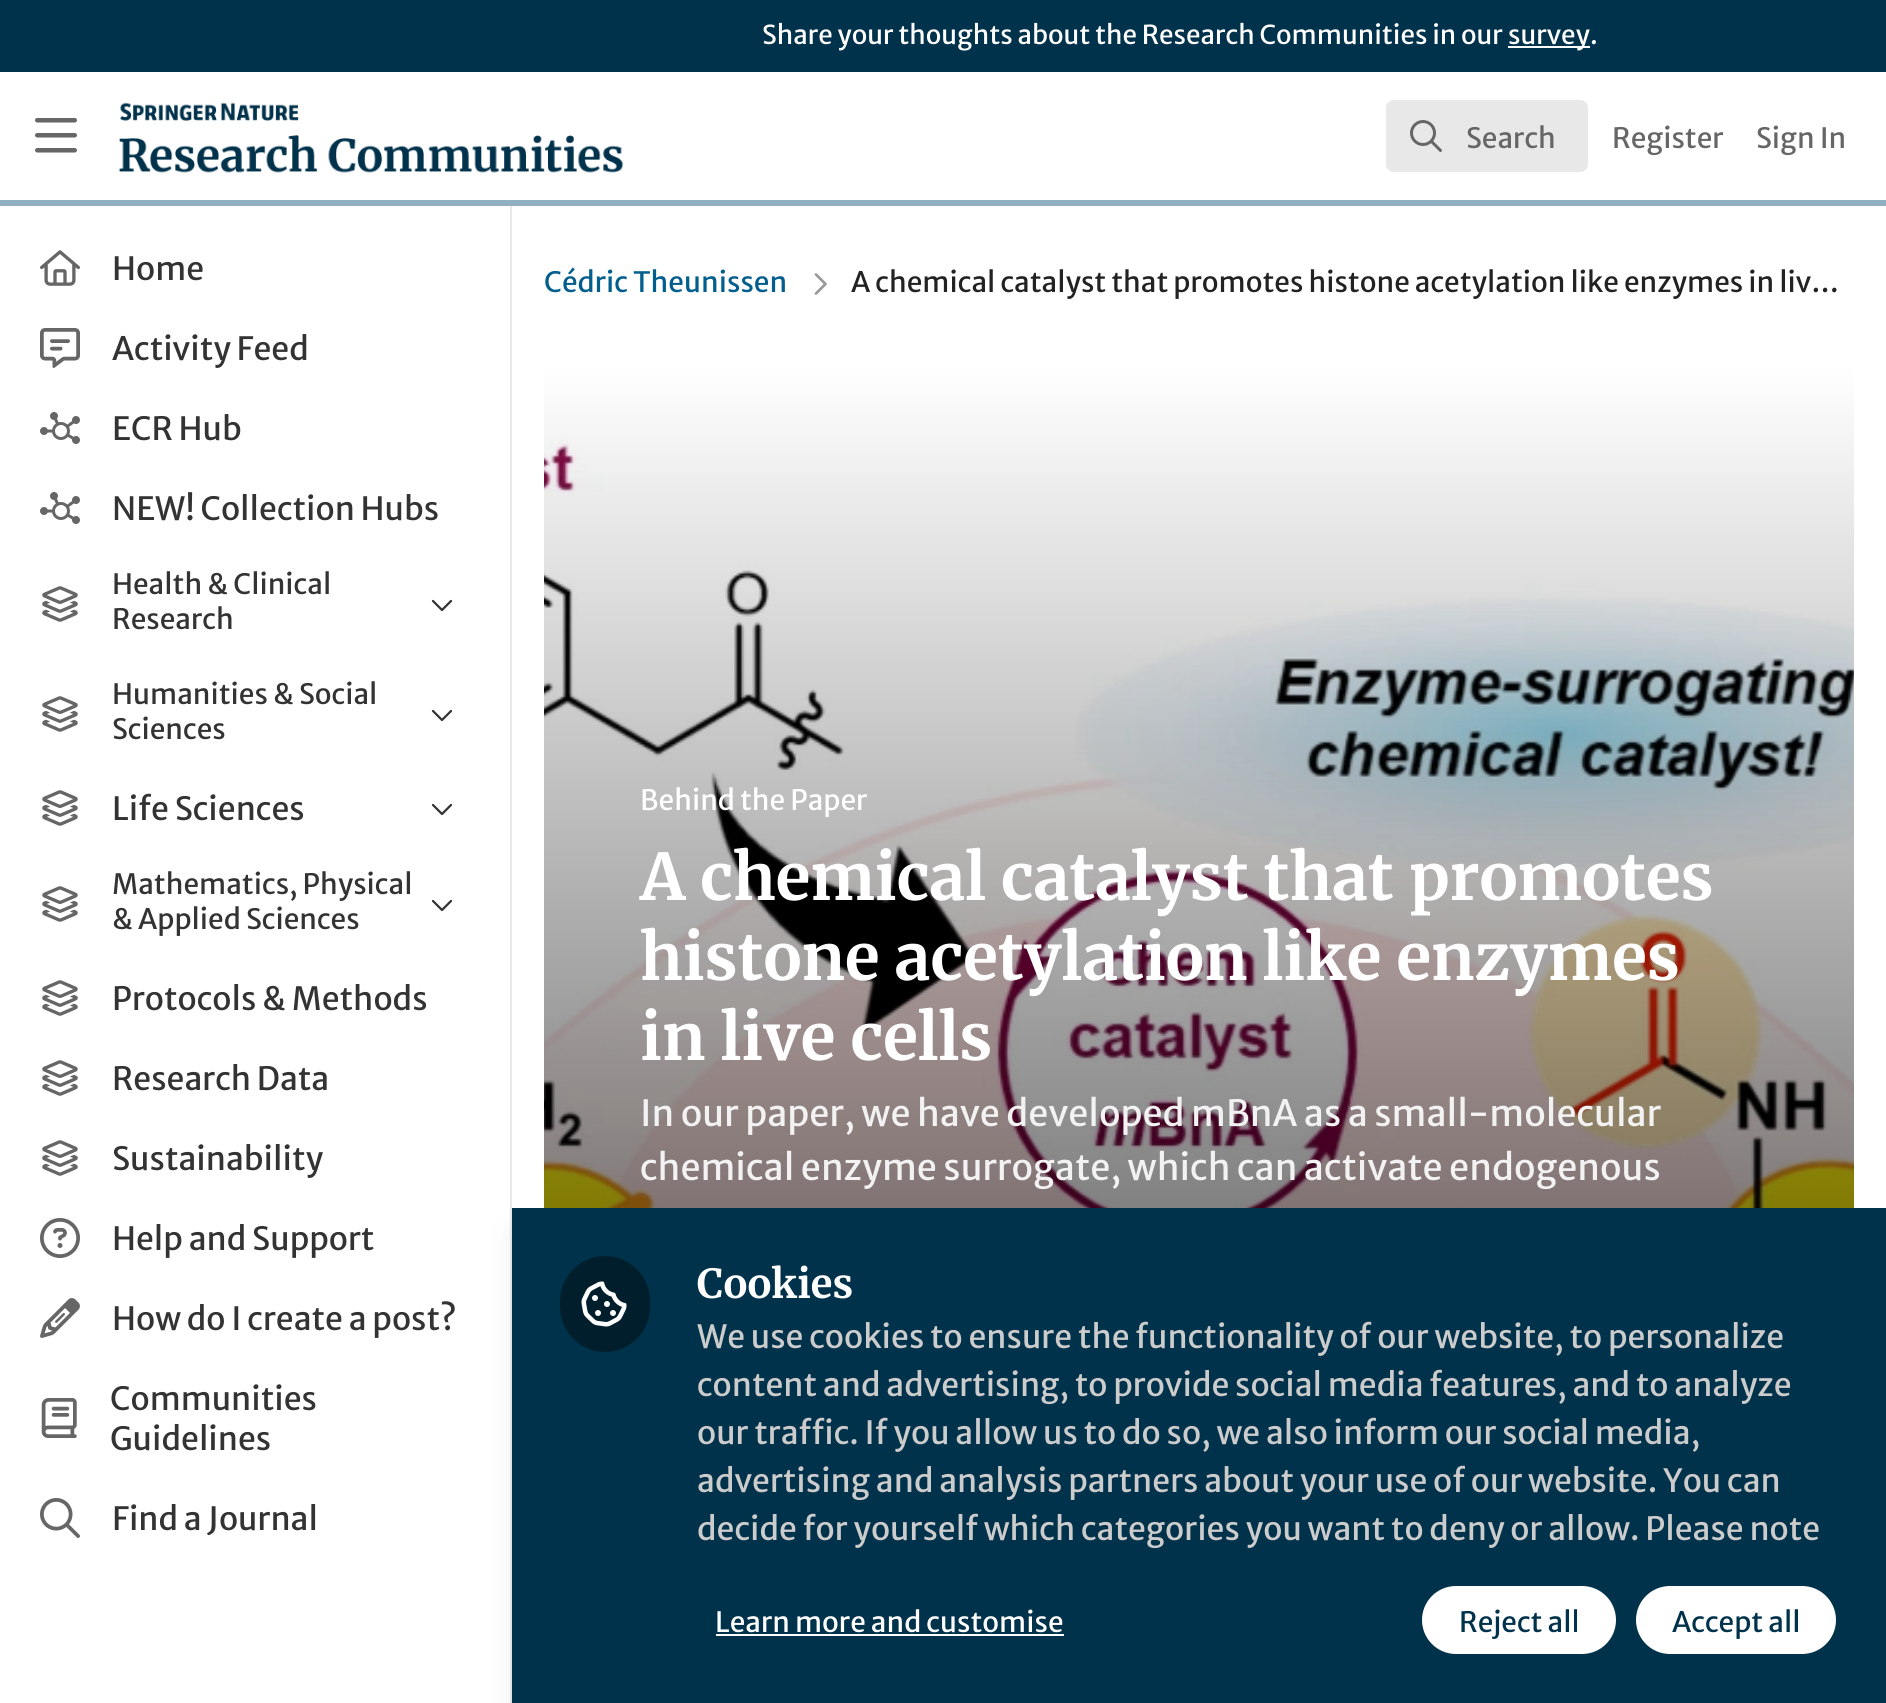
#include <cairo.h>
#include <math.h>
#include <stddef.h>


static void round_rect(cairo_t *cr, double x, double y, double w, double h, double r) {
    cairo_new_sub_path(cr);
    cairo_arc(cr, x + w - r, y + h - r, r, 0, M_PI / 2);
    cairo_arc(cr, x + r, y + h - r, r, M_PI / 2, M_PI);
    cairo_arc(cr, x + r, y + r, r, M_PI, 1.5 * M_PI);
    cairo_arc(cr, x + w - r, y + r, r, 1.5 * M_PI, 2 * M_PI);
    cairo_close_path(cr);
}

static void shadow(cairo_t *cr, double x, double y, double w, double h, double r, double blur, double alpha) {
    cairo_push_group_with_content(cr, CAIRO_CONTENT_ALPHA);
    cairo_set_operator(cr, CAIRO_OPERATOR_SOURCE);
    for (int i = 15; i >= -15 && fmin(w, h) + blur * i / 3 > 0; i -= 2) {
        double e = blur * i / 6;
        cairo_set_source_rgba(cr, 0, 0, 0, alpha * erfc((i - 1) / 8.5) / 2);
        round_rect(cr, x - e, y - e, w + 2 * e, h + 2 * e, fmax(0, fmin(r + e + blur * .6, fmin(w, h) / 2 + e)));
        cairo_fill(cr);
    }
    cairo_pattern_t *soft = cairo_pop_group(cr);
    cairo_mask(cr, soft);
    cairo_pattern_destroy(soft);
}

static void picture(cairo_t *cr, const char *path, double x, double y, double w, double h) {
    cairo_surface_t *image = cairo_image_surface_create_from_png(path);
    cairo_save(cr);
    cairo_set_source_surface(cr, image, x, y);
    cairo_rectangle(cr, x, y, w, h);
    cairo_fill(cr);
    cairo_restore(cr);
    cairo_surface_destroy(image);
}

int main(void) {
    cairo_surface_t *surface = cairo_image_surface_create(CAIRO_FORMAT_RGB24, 1886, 1703);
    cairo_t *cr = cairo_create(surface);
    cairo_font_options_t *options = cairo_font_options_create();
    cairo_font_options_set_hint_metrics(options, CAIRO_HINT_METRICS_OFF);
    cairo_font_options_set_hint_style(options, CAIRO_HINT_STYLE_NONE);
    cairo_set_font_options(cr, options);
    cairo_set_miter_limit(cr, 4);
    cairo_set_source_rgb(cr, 1, 1, 1);
    cairo_paint(cr);
    cairo_set_source_rgb(cr, 0.004, 0.196, 0.294);
    cairo_rectangle(cr, 0, 0, 1886, 72);
    cairo_fill(cr);
    cairo_select_font_face(cr, "Merriweather Sans", CAIRO_FONT_SLANT_NORMAL, CAIRO_FONT_WEIGHT_NORMAL);
    cairo_set_font_size(cr, 26);
    cairo_set_source_rgb(cr, 1, 1, 1);
    cairo_move_to(cr, 762, 44);
    cairo_show_text(cr, "Share your thoughts about the Research Communities in our");
    cairo_rectangle(cr, 1508, 46, 82, 2);
    cairo_fill(cr);
    cairo_move_to(cr, 1508, 44);
    cairo_show_text(cr, "survey.");
    cairo_set_source_rgb(cr, 0.91, 0.91, 0.91);
    cairo_rectangle(cr, 510, 200, 2, 1503);
    cairo_fill(cr);
    cairo_set_source_rgb(cr, 0.565, 0.69, 0.761);
    cairo_rectangle(cr, 0, 200, 1886, 6);
    cairo_fill(cr);
    picture(cr, "img1.png", 35, 118, 42, 35);
    picture(cr, "img2.png", 118, 102, 506, 71);
    cairo_set_source_rgb(cr, 0.91, 0.91, 0.91);
    round_rect(cr, 1386, 100, 202, 72, 8);
    cairo_fill(cr);
    picture(cr, "img3.png", 1410, 120, 32, 32);
    cairo_set_font_size(cr, 28);
    cairo_set_source_rgb(cr, 0.4, 0.4, 0.4);
    cairo_move_to(cr, 1466, 148);
    cairo_show_text(cr, "Search");
    cairo_move_to(cr, 1612, 148);
    cairo_show_text(cr, "Register");
    cairo_move_to(cr, 1756, 148);
    cairo_show_text(cr, "Sign In");
    picture(cr, "img4.png", 40, 250, 40, 36);
    cairo_set_font_size(cr, 32);
    cairo_set_source_rgb(cr, 0.2, 0.2, 0.2);
    cairo_move_to(cr, 112, 280);
    cairo_show_text(cr, "Home");
    picture(cr, "img5.png", 40, 328, 40, 40);
    cairo_move_to(cr, 112, 360);
    cairo_show_text(cr, "Activity Feed");
    picture(cr, "img6.png", 40, 412, 40, 32);
    cairo_move_to(cr, 112, 440);
    cairo_show_text(cr, "ECR Hub");
    picture(cr, "img6.png", 40, 492, 40, 32);
    cairo_move_to(cr, 112, 520);
    cairo_show_text(cr, "NEW! Collection Hubs");
    picture(cr, "img7.png", 42, 586, 36, 36);
    cairo_set_font_size(cr, 28);
    cairo_move_to(cr, 112, 594);
    cairo_show_text(cr, "Health & Clinical");
    cairo_move_to(cr, 112, 629);
    cairo_show_text(cr, "Research");
    picture(cr, "img8.png", 431, 599, 22, 13);
    picture(cr, "img7.png", 42, 696, 36, 36);
    cairo_move_to(cr, 112, 704);
    cairo_show_text(cr, "Humanities & Social");
    cairo_move_to(cr, 112, 739);
    cairo_show_text(cr, "Sciences");
    picture(cr, "img8.png", 431, 709, 22, 13);
    picture(cr, "img7.png", 42, 790, 36, 36);
    cairo_set_font_size(cr, 32);
    cairo_move_to(cr, 112, 820);
    cairo_show_text(cr, "Life Sciences");
    picture(cr, "img8.png", 431, 803, 22, 13);
    picture(cr, "img7.png", 42, 886, 36, 36);
    cairo_set_font_size(cr, 28);
    cairo_move_to(cr, 112, 894);
    cairo_show_text(cr, "Mathematics, Physical");
    cairo_move_to(cr, 112, 929);
    cairo_show_text(cr, "& Applied Sciences");
    picture(cr, "img8.png", 431, 899, 22, 13);
    picture(cr, "img7.png", 42, 980, 36, 36);
    cairo_set_font_size(cr, 32);
    cairo_move_to(cr, 112, 1010);
    cairo_show_text(cr, "Protocols & Methods");
    picture(cr, "img7.png", 42, 1060, 36, 36);
    cairo_move_to(cr, 112, 1090);
    cairo_show_text(cr, "Research Data");
    picture(cr, "img7.png", 42, 1140, 36, 36);
    cairo_move_to(cr, 112, 1170);
    cairo_show_text(cr, "Sustainability");
    picture(cr, "img9.png", 40, 1218, 40, 40);
    cairo_move_to(cr, 112, 1250);
    cairo_show_text(cr, "Help and Support");
    picture(cr, "img10.png", 40, 1298, 40, 40);
    cairo_move_to(cr, 112, 1330);
    cairo_show_text(cr, "How do I create a post?");
    picture(cr, "img11.png", 41, 1398, 36, 40);
    cairo_move_to(cr, 110, 1410);
    cairo_show_text(cr, "Communities");
    cairo_move_to(cr, 110, 1450);
    cairo_show_text(cr, "Guidelines");
    picture(cr, "img12.png", 40, 1498, 40, 40);
    cairo_move_to(cr, 112, 1530);
    cairo_show_text(cr, "Find a Journal");
    cairo_set_font_size(cr, 28);
    cairo_set_source_rgb(cr, 0.008, 0.369, 0.553);
    cairo_move_to(cr, 544, 292);
    cairo_show_text(cr, "Cédric Theunissen");
    cairo_new_path(cr);
    cairo_move_to(cr, 816, 274.5);
    cairo_line_to(cr, 825.5, 284);
    cairo_line_to(cr, 816, 293.5);
    cairo_set_source_rgb(cr, 0.6, 0.6, 0.6);
    cairo_set_line_width(cr, 2.7);
    cairo_set_line_cap(cr, CAIRO_LINE_CAP_ROUND);
    cairo_set_line_join(cr, CAIRO_LINE_JOIN_ROUND);
    cairo_stroke(cr);
    cairo_set_source_rgb(cr, 0.133, 0.133, 0.133);
    cairo_move_to(cr, 851, 292);
    cairo_show_text(cr, "A chemical catalyst that promotes histone acetylation like enzymes in liv…");
    picture(cr, "img13.png", 544, 366, 1310, 842);
    cairo_set_source_rgb(cr, 1, 1, 1);
    cairo_move_to(cr, 640, 810);
    cairo_show_text(cr, "Behind the Paper");
    cairo_select_font_face(cr, "Merriweather", CAIRO_FONT_SLANT_NORMAL, CAIRO_FONT_WEIGHT_BOLD);
    cairo_set_font_size(cr, 64);
    cairo_move_to(cr, 640, 900);
    cairo_show_text(cr, "A chemical catalyst that promotes");
    cairo_move_to(cr, 640, 980);
    cairo_show_text(cr, "histone acetylation like enzymes");
    cairo_move_to(cr, 640, 1060);
    cairo_show_text(cr, "in live cells");
    cairo_select_font_face(cr, "Merriweather Sans", CAIRO_FONT_SLANT_NORMAL, CAIRO_FONT_WEIGHT_NORMAL);
    cairo_set_font_size(cr, 36);
    cairo_set_source_rgb(cr, 0.953, 0.949, 0.949);
    cairo_move_to(cr, 640, 1126);
    cairo_show_text(cr, "In our paper, we have developed mBnA as a small-molecular");
    cairo_move_to(cr, 640, 1180);
    cairo_show_text(cr, "chemical enzyme surrogate, which can activate endogenous");
    cairo_set_source_rgb(cr, 0, 0, 0);
    shadow(cr, 518, 1234, 1362, 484, 0, 15, 0.1);
    cairo_set_source_rgb(cr, 0.004, 0.196, 0.294);
    cairo_rectangle(cr, 512, 1208, 1374, 495);
    cairo_fill(cr);
    cairo_set_source_rgb(cr, 0.004, 0.118, 0.176);
    round_rect(cr, 560, 1256, 90, 96, 45);
    cairo_fill(cr);
    picture(cr, "img14.png", 581, 1281, 46, 46);
    cairo_select_font_face(cr, "Merriweather", CAIRO_FONT_SLANT_NORMAL, CAIRO_FONT_WEIGHT_BOLD);
    cairo_set_font_size(cr, 40);
    cairo_set_source_rgb(cr, 1, 1, 1);
    cairo_move_to(cr, 697, 1298);
    cairo_show_text(cr, "Cookies");
    cairo_select_font_face(cr, "Merriweather Sans", CAIRO_FONT_SLANT_NORMAL, CAIRO_FONT_WEIGHT_NORMAL);
    cairo_set_font_size(cr, 32);
    cairo_set_source_rgb(cr, 0.8, 0.8, 0.8);
    cairo_move_to(cr, 697, 1348);
    cairo_show_text(cr, "We use cookies to ensure the functionality of our website, to personalize");
    cairo_move_to(cr, 697, 1396);
    cairo_show_text(cr, "content and advertising, to provide social media features, and to analyze");
    cairo_move_to(cr, 697, 1444);
    cairo_show_text(cr, "our traffic. If you allow us to do so, we also inform our social media,");
    cairo_move_to(cr, 697, 1492);
    cairo_show_text(cr, "advertising and analysis partners about your use of our website. You can");
    cairo_move_to(cr, 697, 1540);
    cairo_show_text(cr, "decide for yourself which categories you want to deny or allow. Please note");
    cairo_set_font_size(cr, 28);
    cairo_set_source_rgb(cr, 1, 1, 1);
    cairo_move_to(cr, 715, 1632);
    cairo_show_text(cr, "Learn more and customise");
    cairo_rectangle(cr, 716, 1634, 348, 2);
    cairo_fill(cr);
    round_rect(cr, 1421, 1585, 196, 70, 35);
    cairo_fill_preserve(cr);
    cairo_set_source_rgb(cr, 0.004, 0.196, 0.294);
    cairo_set_line_width(cr, 2);
    cairo_set_line_cap(cr, CAIRO_LINE_CAP_BUTT);
    cairo_set_line_join(cr, CAIRO_LINE_JOIN_MITER);
    cairo_stroke(cr);
    cairo_move_to(cr, 1459, 1632);
    cairo_show_text(cr, "Reject all");
    cairo_set_source_rgb(cr, 1, 1, 1);
    round_rect(cr, 1635, 1585, 202, 70, 35);
    cairo_fill_preserve(cr);
    cairo_set_source_rgb(cr, 0.004, 0.196, 0.294);
    cairo_stroke(cr);
    cairo_move_to(cr, 1672, 1632);
    cairo_show_text(cr, "Accept all");
    cairo_surface_write_to_png(surface, "page.png");
    cairo_font_options_destroy(options);
    cairo_destroy(cr);
    cairo_surface_destroy(surface);
    return 0;
}
